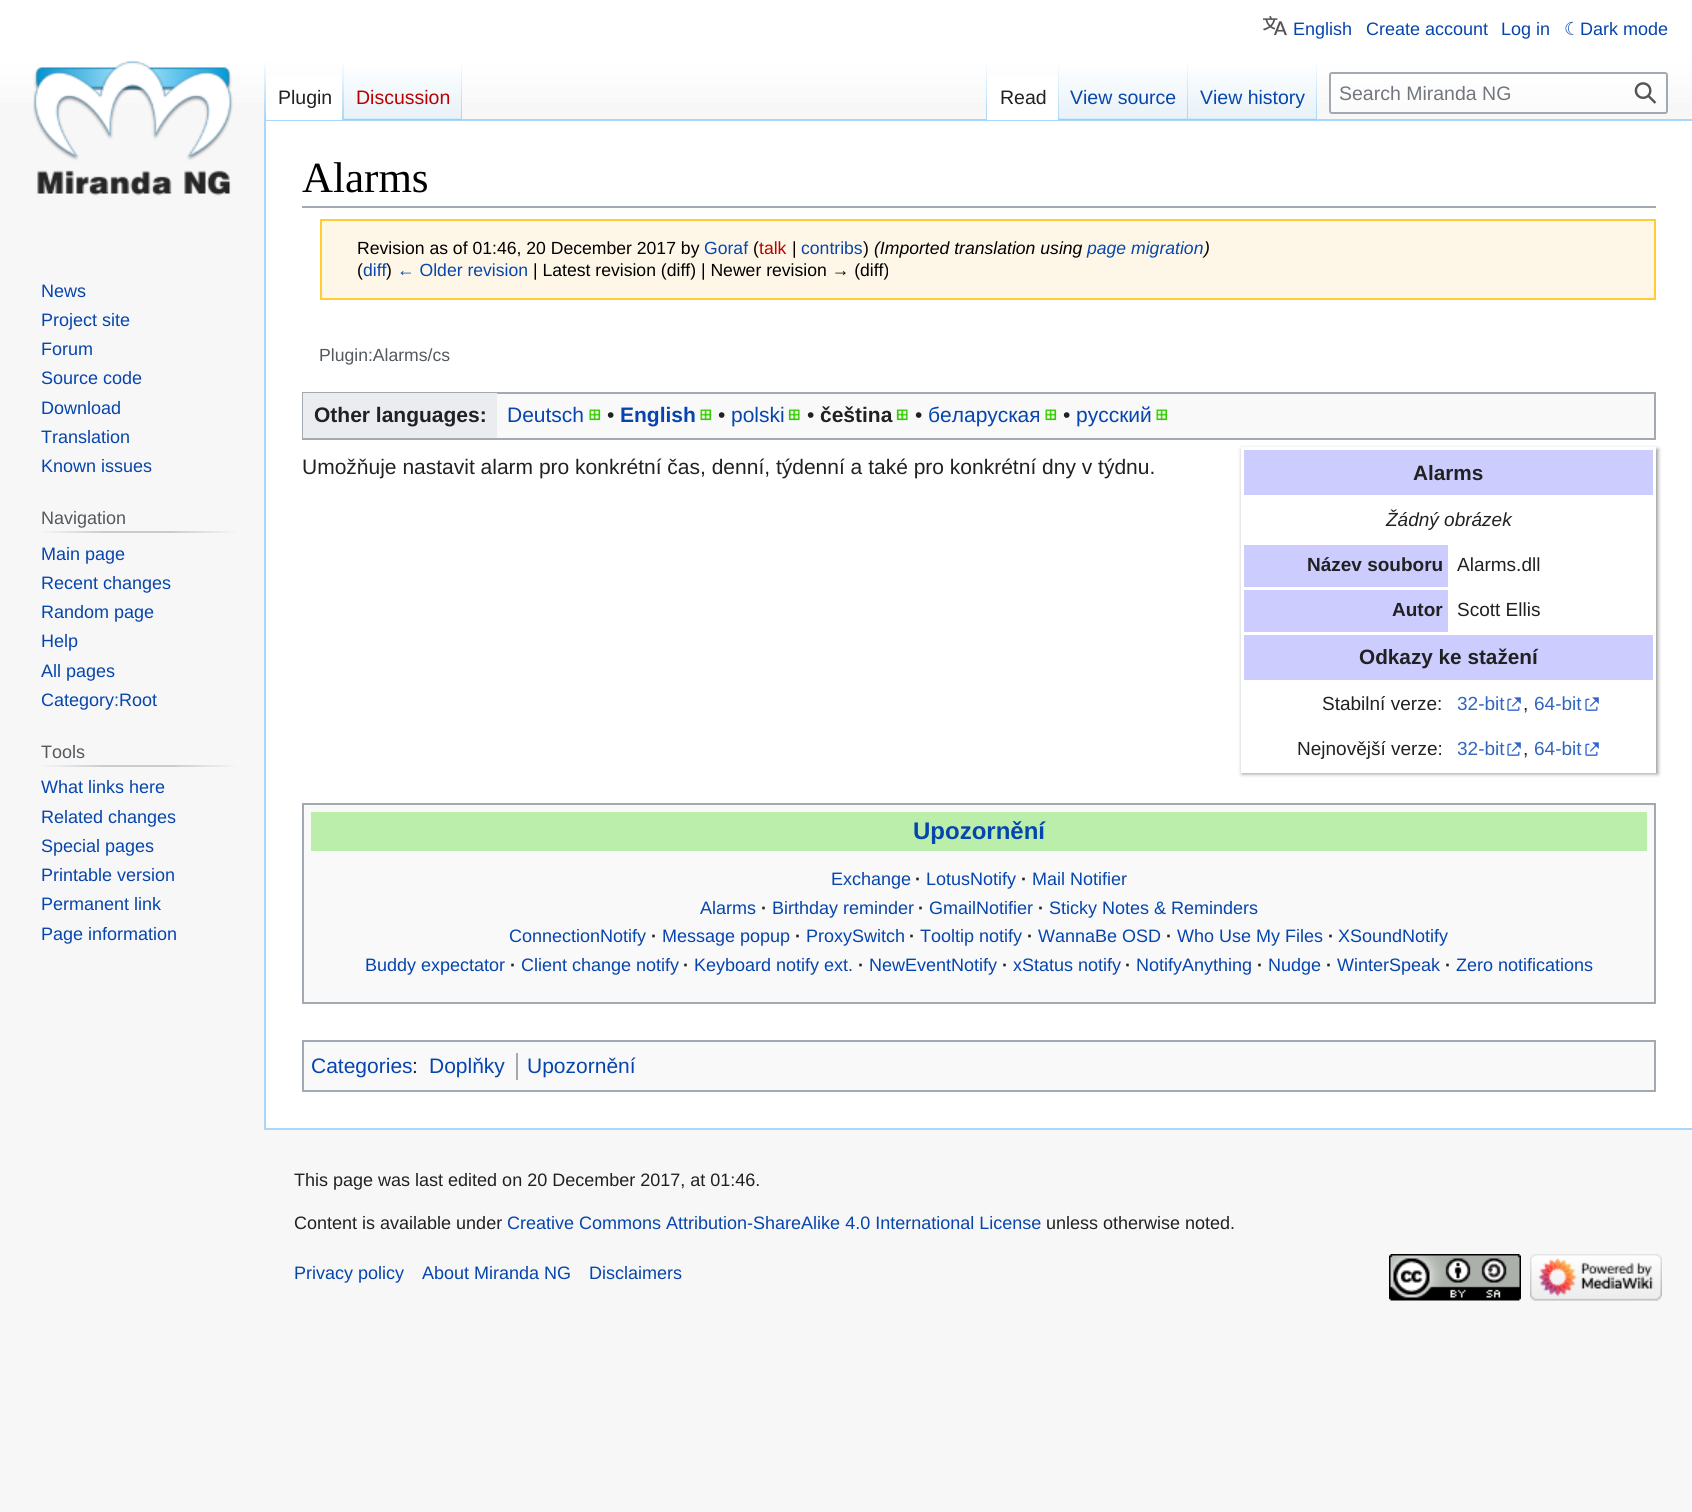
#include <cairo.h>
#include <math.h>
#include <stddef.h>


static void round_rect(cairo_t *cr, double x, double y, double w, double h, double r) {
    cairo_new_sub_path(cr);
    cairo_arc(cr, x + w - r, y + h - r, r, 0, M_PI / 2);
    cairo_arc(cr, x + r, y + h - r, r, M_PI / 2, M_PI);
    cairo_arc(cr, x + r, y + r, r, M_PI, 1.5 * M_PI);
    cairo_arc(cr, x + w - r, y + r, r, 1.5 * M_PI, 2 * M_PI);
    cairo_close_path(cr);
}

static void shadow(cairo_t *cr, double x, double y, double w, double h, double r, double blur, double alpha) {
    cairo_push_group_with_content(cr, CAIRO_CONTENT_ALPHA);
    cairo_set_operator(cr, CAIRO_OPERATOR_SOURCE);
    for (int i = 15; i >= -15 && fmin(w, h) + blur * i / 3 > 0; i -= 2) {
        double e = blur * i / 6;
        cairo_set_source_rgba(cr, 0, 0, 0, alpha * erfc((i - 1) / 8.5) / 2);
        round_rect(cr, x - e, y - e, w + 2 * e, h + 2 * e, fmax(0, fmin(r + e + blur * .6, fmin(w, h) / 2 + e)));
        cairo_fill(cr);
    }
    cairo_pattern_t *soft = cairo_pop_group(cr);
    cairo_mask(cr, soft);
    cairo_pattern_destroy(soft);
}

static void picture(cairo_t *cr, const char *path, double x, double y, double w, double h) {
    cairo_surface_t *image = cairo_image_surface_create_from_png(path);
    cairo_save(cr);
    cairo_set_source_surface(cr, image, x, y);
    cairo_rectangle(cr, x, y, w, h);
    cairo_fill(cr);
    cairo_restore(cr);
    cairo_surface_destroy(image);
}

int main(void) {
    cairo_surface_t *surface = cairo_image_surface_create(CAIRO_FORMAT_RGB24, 1692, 1512);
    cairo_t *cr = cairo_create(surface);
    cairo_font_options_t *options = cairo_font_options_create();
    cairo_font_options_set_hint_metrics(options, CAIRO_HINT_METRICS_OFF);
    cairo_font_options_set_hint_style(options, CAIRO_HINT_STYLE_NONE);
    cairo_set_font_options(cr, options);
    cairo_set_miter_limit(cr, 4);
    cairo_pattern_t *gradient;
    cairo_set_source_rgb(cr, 0.965, 0.965, 0.965);
    cairo_paint(cr);
    gradient = cairo_pattern_create_linear(846, 0, 846, 120);
    cairo_pattern_add_color_stop_rgba(gradient, 0.5, 1, 1, 1, 1);
    cairo_pattern_add_color_stop_rgba(gradient, 1, 0.965, 0.965, 0.965, 1);
    cairo_set_source(cr, gradient);
    cairo_pattern_destroy(gradient);
    cairo_rectangle(cr, 0, 0, 1692, 103);
    cairo_fill(cr);
    picture(cr, "img1.png", 1263, 16, 24, 20);
    cairo_select_font_face(cr, "Liberation Sans", CAIRO_FONT_SLANT_NORMAL, CAIRO_FONT_WEIGHT_NORMAL);
    cairo_set_font_size(cr, 18);
    cairo_set_source_rgb(cr, 0.024, 0.271, 0.678);
    cairo_move_to(cr, 1293, 35);
    cairo_show_text(cr, "English");
    cairo_move_to(cr, 1366, 35);
    cairo_show_text(cr, "Create account");
    cairo_move_to(cr, 1501, 35);
    cairo_show_text(cr, "Log in");
    cairo_select_font_face(cr, "DejaVu Sans", CAIRO_FONT_SLANT_NORMAL, CAIRO_FONT_WEIGHT_NORMAL);
    cairo_move_to(cr, 1564, 35);
    cairo_show_text(cr, "☾");
    cairo_select_font_face(cr, "Liberation Sans", CAIRO_FONT_SLANT_NORMAL, CAIRO_FONT_WEIGHT_NORMAL);
    cairo_move_to(cr, 1580, 35);
    cairo_show_text(cr, "Dark mode");
    cairo_set_source_rgb(cr, 0.655, 0.843, 0.976);
    cairo_rectangle(cr, 264, 119, 1428, 2);
    cairo_fill(cr);
    cairo_rectangle(cr, 264, 1128, 1428, 2);
    cairo_fill(cr);
    cairo_rectangle(cr, 264, 119, 2, 1011);
    cairo_fill(cr);
    gradient = cairo_pattern_create_linear(265, 60, 265, 120);
    cairo_pattern_add_color_stop_rgba(gradient, 0, 0.655, 0.843, 0.976, 0);
    cairo_pattern_add_color_stop_rgba(gradient, 1, 0.655, 0.843, 0.976, 1);
    cairo_set_source(cr, gradient);
    cairo_pattern_destroy(gradient);
    cairo_rectangle(cr, 264, 60, 2, 60);
    cairo_fill(cr);
    cairo_set_source_rgb(cr, 1, 1, 1);
    cairo_rectangle(cr, 266, 77, 76, 43);
    cairo_fill(cr);
    gradient = cairo_pattern_create_linear(343, 60, 343, 120);
    cairo_pattern_add_color_stop_rgba(gradient, 0, 1, 1, 1, 1);
    cairo_pattern_add_color_stop_rgba(gradient, 1, 0.655, 0.843, 0.976, 1);
    cairo_set_source(cr, gradient);
    cairo_pattern_destroy(gradient);
    cairo_rectangle(cr, 342, 60, 2, 60);
    cairo_fill(cr);
    cairo_set_font_size(cr, 19.5);
    cairo_set_source_rgb(cr, 0.125, 0.129, 0.133);
    cairo_move_to(cr, 278, 104);
    cairo_show_text(cr, "Plugin");
    gradient = cairo_pattern_create_linear(403, 120, 403, 60);
    cairo_pattern_add_color_stop_rgba(gradient, 0, 0.467, 0.757, 0.965, 1);
    cairo_pattern_add_color_stop_rgba(gradient, 0.03, 0.91, 0.949, 0.973, 1);
    cairo_pattern_add_color_stop_rgba(gradient, 1, 1, 1, 1, 1);
    cairo_set_source(cr, gradient);
    cairo_pattern_destroy(gradient);
    cairo_rectangle(cr, 344, 69, 118, 51);
    cairo_fill(cr);
    gradient = cairo_pattern_create_linear(461, 60, 461, 120);
    cairo_pattern_add_color_stop_rgba(gradient, 0, 0.655, 0.843, 0.976, 0);
    cairo_pattern_add_color_stop_rgba(gradient, 1, 0.655, 0.843, 0.976, 1);
    cairo_set_source(cr, gradient);
    cairo_pattern_destroy(gradient);
    cairo_rectangle(cr, 461, 60, 1, 60);
    cairo_fill(cr);
    cairo_set_source_rgb(cr, 0.729, 0, 0);
    cairo_move_to(cr, 356, 104);
    cairo_show_text(cr, "Discussion");
    gradient = cairo_pattern_create_linear(986, 60, 986, 120);
    cairo_pattern_add_color_stop_rgba(gradient, 0, 0.655, 0.843, 0.976, 0);
    cairo_pattern_add_color_stop_rgba(gradient, 1, 0.655, 0.843, 0.976, 1);
    cairo_set_source(cr, gradient);
    cairo_pattern_destroy(gradient);
    cairo_rectangle(cr, 986, 60, 1, 60);
    cairo_fill(cr);
    cairo_set_source_rgb(cr, 1, 1, 1);
    cairo_rectangle(cr, 987, 77, 71, 43);
    cairo_fill(cr);
    gradient = cairo_pattern_create_linear(1058, 60, 1058, 120);
    cairo_pattern_add_color_stop_rgba(gradient, 0, 1, 1, 1, 1);
    cairo_pattern_add_color_stop_rgba(gradient, 1, 0.655, 0.843, 0.976, 1);
    cairo_set_source(cr, gradient);
    cairo_pattern_destroy(gradient);
    cairo_rectangle(cr, 1058, 60, 1, 60);
    cairo_fill(cr);
    cairo_set_source_rgb(cr, 0.125, 0.129, 0.133);
    cairo_move_to(cr, 1000, 104);
    cairo_show_text(cr, "Read");
    gradient = cairo_pattern_create_linear(1124, 120, 1124, 60);
    cairo_pattern_add_color_stop_rgba(gradient, 0, 0.467, 0.757, 0.965, 1);
    cairo_pattern_add_color_stop_rgba(gradient, 0.03, 0.91, 0.949, 0.973, 1);
    cairo_pattern_add_color_stop_rgba(gradient, 1, 1, 1, 1, 1);
    cairo_set_source(cr, gradient);
    cairo_pattern_destroy(gradient);
    cairo_rectangle(cr, 1059, 69, 129, 51);
    cairo_fill(cr);
    gradient = cairo_pattern_create_linear(1187, 60, 1187, 120);
    cairo_pattern_add_color_stop_rgba(gradient, 0, 0.655, 0.843, 0.976, 0);
    cairo_pattern_add_color_stop_rgba(gradient, 1, 0.655, 0.843, 0.976, 1);
    cairo_set_source(cr, gradient);
    cairo_pattern_destroy(gradient);
    cairo_rectangle(cr, 1187, 60, 1, 60);
    cairo_fill(cr);
    cairo_set_source_rgb(cr, 0.024, 0.271, 0.678);
    cairo_move_to(cr, 1070, 104);
    cairo_show_text(cr, "View source");
    gradient = cairo_pattern_create_linear(1253, 120, 1253, 60);
    cairo_pattern_add_color_stop_rgba(gradient, 0, 0.467, 0.757, 0.965, 1);
    cairo_pattern_add_color_stop_rgba(gradient, 0.03, 0.91, 0.949, 0.973, 1);
    cairo_pattern_add_color_stop_rgba(gradient, 1, 1, 1, 1, 1);
    cairo_set_source(cr, gradient);
    cairo_pattern_destroy(gradient);
    cairo_rectangle(cr, 1188, 69, 129, 51);
    cairo_fill(cr);
    gradient = cairo_pattern_create_linear(1316, 60, 1316, 120);
    cairo_pattern_add_color_stop_rgba(gradient, 0, 0.655, 0.843, 0.976, 0);
    cairo_pattern_add_color_stop_rgba(gradient, 1, 0.655, 0.843, 0.976, 1);
    cairo_set_source(cr, gradient);
    cairo_pattern_destroy(gradient);
    cairo_rectangle(cr, 1316, 60, 1, 60);
    cairo_fill(cr);
    cairo_set_source_rgb(cr, 0.024, 0.271, 0.678);
    cairo_move_to(cr, 1200, 104);
    cairo_show_text(cr, "View history");
    cairo_set_source_rgba(cr, 1, 1, 1, 0.5);
    round_rect(cr, 1330, 73, 337, 40, 2);
    cairo_fill_preserve(cr);
    cairo_set_source_rgb(cr, 0.635, 0.663, 0.694);
    cairo_stroke(cr);
    cairo_set_source_rgb(cr, 0.447, 0.467, 0.49);
    cairo_move_to(cr, 1339, 100);
    cairo_show_text(cr, "Search Miranda NG");
    picture(cr, "img2.png", 1634, 82, 23, 22);
    picture(cr, "img3.png", 33, 60, 200, 136);
    cairo_set_font_size(cr, 18);
    cairo_set_source_rgb(cr, 0.024, 0.271, 0.678);
    cairo_move_to(cr, 41, 297);
    cairo_show_text(cr, "News");
    cairo_move_to(cr, 41, 326);
    cairo_show_text(cr, "Project site");
    cairo_move_to(cr, 41, 355);
    cairo_show_text(cr, "Forum");
    cairo_move_to(cr, 41, 384);
    cairo_show_text(cr, "Source code");
    cairo_move_to(cr, 41, 414);
    cairo_show_text(cr, "Download");
    cairo_move_to(cr, 41, 443);
    cairo_show_text(cr, "Translation");
    cairo_move_to(cr, 41, 472);
    cairo_show_text(cr, "Known issues");
    gradient = cairo_pattern_create_linear(41, 532, 237, 532);
    cairo_pattern_add_color_stop_rgba(gradient, 0, 0.965, 0.965, 0.965, 1);
    cairo_pattern_add_color_stop_rgba(gradient, 0.33, 0.784, 0.8, 0.82, 1);
    cairo_pattern_add_color_stop_rgba(gradient, 0.66, 0.784, 0.8, 0.82, 1);
    cairo_pattern_add_color_stop_rgba(gradient, 1, 0.965, 0.965, 0.965, 1);
    cairo_set_source(cr, gradient);
    cairo_pattern_destroy(gradient);
    cairo_rectangle(cr, 41, 531, 196, 2);
    cairo_fill(cr);
    cairo_set_source_rgb(cr, 0.329, 0.349, 0.365);
    cairo_move_to(cr, 41, 524);
    cairo_show_text(cr, "Navigation");
    cairo_set_source_rgb(cr, 0.024, 0.271, 0.678);
    cairo_move_to(cr, 41, 560);
    cairo_show_text(cr, "Main page");
    cairo_move_to(cr, 41, 589);
    cairo_show_text(cr, "Recent changes");
    cairo_move_to(cr, 41, 618);
    cairo_show_text(cr, "Random page");
    cairo_move_to(cr, 41, 647);
    cairo_show_text(cr, "Help");
    cairo_move_to(cr, 41, 677);
    cairo_show_text(cr, "All pages");
    cairo_move_to(cr, 41, 706);
    cairo_show_text(cr, "Category:Root");
    gradient = cairo_pattern_create_linear(41, 766, 237, 766);
    cairo_pattern_add_color_stop_rgba(gradient, 0, 0.965, 0.965, 0.965, 1);
    cairo_pattern_add_color_stop_rgba(gradient, 0.33, 0.784, 0.8, 0.82, 1);
    cairo_pattern_add_color_stop_rgba(gradient, 0.66, 0.784, 0.8, 0.82, 1);
    cairo_pattern_add_color_stop_rgba(gradient, 1, 0.965, 0.965, 0.965, 1);
    cairo_set_source(cr, gradient);
    cairo_pattern_destroy(gradient);
    cairo_rectangle(cr, 41, 765, 196, 2);
    cairo_fill(cr);
    cairo_set_source_rgb(cr, 0.329, 0.349, 0.365);
    cairo_move_to(cr, 41, 758);
    cairo_show_text(cr, "Tools");
    cairo_set_source_rgb(cr, 0.024, 0.271, 0.678);
    cairo_move_to(cr, 41, 793);
    cairo_show_text(cr, "What links here");
    cairo_move_to(cr, 41, 823);
    cairo_show_text(cr, "Related changes");
    cairo_move_to(cr, 41, 852);
    cairo_show_text(cr, "Special pages");
    cairo_move_to(cr, 41, 881);
    cairo_show_text(cr, "Printable version");
    cairo_move_to(cr, 41, 910);
    cairo_show_text(cr, "Permanent link");
    cairo_move_to(cr, 41, 940);
    cairo_show_text(cr, "Page information");
    cairo_set_source_rgb(cr, 1, 1, 1);
    cairo_rectangle(cr, 266, 121, 1426, 1007);
    cairo_fill(cr);
    cairo_set_source_rgb(cr, 0.635, 0.663, 0.694);
    cairo_rectangle(cr, 302, 206, 1354, 2);
    cairo_fill(cr);
    cairo_select_font_face(cr, "Liberation Serif", CAIRO_FONT_SLANT_NORMAL, CAIRO_FONT_WEIGHT_NORMAL);
    cairo_set_font_size(cr, 43);
    cairo_set_source_rgb(cr, 0, 0, 0);
    cairo_move_to(cr, 302, 192);
    cairo_show_text(cr, "Alarms");
    cairo_set_source_rgb(cr, 0.996, 0.965, 0.906);
    cairo_rectangle(cr, 321, 220, 1334, 79);
    cairo_fill_preserve(cr);
    cairo_set_source_rgb(cr, 1, 0.8, 0.2);
    cairo_stroke(cr);
    cairo_select_font_face(cr, "Liberation Sans", CAIRO_FONT_SLANT_NORMAL, CAIRO_FONT_WEIGHT_NORMAL);
    cairo_set_font_size(cr, 17.6);
    cairo_set_source_rgb(cr, 0, 0, 0);
    cairo_move_to(cr, 357, 254);
    cairo_show_text(cr, "Revision as of 01:46, 20 December 2017 by");
    cairo_set_source_rgb(cr, 0.024, 0.271, 0.678);
    cairo_move_to(cr, 704, 254);
    cairo_show_text(cr, "Goraf");
    cairo_set_source_rgb(cr, 0, 0, 0);
    cairo_move_to(cr, 753, 254);
    cairo_show_text(cr, "(");
    cairo_set_source_rgb(cr, 0.729, 0, 0);
    cairo_move_to(cr, 759, 254);
    cairo_show_text(cr, "talk");
    cairo_set_source_rgb(cr, 0, 0, 0);
    cairo_move_to(cr, 792, 254);
    cairo_show_text(cr, "|");
    cairo_set_source_rgb(cr, 0.024, 0.271, 0.678);
    cairo_move_to(cr, 801, 254);
    cairo_show_text(cr, "contribs");
    cairo_set_source_rgb(cr, 0, 0, 0);
    cairo_move_to(cr, 863, 254);
    cairo_show_text(cr, ")");
    cairo_select_font_face(cr, "Liberation Sans", CAIRO_FONT_SLANT_ITALIC, CAIRO_FONT_WEIGHT_NORMAL);
    cairo_move_to(cr, 874, 254);
    cairo_show_text(cr, "(Imported translation using");
    cairo_set_source_rgb(cr, 0.024, 0.271, 0.678);
    cairo_move_to(cr, 1087, 254);
    cairo_show_text(cr, "page migration");
    cairo_set_source_rgb(cr, 0, 0, 0);
    cairo_move_to(cr, 1204, 254);
    cairo_show_text(cr, ")");
    cairo_select_font_face(cr, "Liberation Sans", CAIRO_FONT_SLANT_NORMAL, CAIRO_FONT_WEIGHT_NORMAL);
    cairo_move_to(cr, 357, 276);
    cairo_show_text(cr, "(");
    cairo_set_source_rgb(cr, 0.024, 0.271, 0.678);
    cairo_move_to(cr, 363, 276);
    cairo_show_text(cr, "diff");
    cairo_set_source_rgb(cr, 0, 0, 0);
    cairo_move_to(cr, 386, 276);
    cairo_show_text(cr, ")");
    cairo_set_source_rgb(cr, 0.024, 0.271, 0.678);
    cairo_move_to(cr, 397, 276);
    cairo_show_text(cr, "← Older revision");
    cairo_set_source_rgb(cr, 0, 0, 0);
    cairo_move_to(cr, 533, 276);
    cairo_show_text(cr, "| Latest revision (diff) | Newer revision → (diff)");
    cairo_set_source_rgb(cr, 0.329, 0.349, 0.365);
    cairo_move_to(cr, 319, 361);
    cairo_show_text(cr, "Plugin:Alarms/cs");
    cairo_set_source_rgb(cr, 0.973, 0.976, 0.98);
    cairo_rectangle(cr, 497, 394, 1157, 44);
    cairo_fill(cr);
    cairo_rectangle(cr, 303, 393, 1352, 46);
    cairo_set_source_rgb(cr, 0.635, 0.663, 0.694);
    cairo_stroke(cr);
    cairo_set_source_rgb(cr, 0.918, 0.925, 0.941);
    cairo_rectangle(cr, 303, 393, 194, 45);
    cairo_fill(cr);
    cairo_select_font_face(cr, "Liberation Sans", CAIRO_FONT_SLANT_NORMAL, CAIRO_FONT_WEIGHT_BOLD);
    cairo_set_font_size(cr, 21);
    cairo_set_source_rgb(cr, 0.125, 0.129, 0.133);
    cairo_move_to(cr, 314, 422);
    cairo_show_text(cr, "Other languages:");
    cairo_select_font_face(cr, "Liberation Sans", CAIRO_FONT_SLANT_NORMAL, CAIRO_FONT_WEIGHT_NORMAL);
    cairo_set_source_rgb(cr, 0.024, 0.271, 0.678);
    cairo_move_to(cr, 507, 422);
    cairo_show_text(cr, "Deutsch");
    picture(cr, "img4.png", 588, 408, 13, 13);
    cairo_set_source_rgb(cr, 0.125, 0.129, 0.133);
    cairo_move_to(cr, 607, 422);
    cairo_show_text(cr, "•");
    cairo_select_font_face(cr, "Liberation Sans", CAIRO_FONT_SLANT_NORMAL, CAIRO_FONT_WEIGHT_BOLD);
    cairo_set_source_rgb(cr, 0.024, 0.271, 0.678);
    cairo_move_to(cr, 620, 422);
    cairo_show_text(cr, "English");
    picture(cr, "img4.png", 699, 408, 13, 13);
    cairo_select_font_face(cr, "Liberation Sans", CAIRO_FONT_SLANT_NORMAL, CAIRO_FONT_WEIGHT_NORMAL);
    cairo_set_source_rgb(cr, 0.125, 0.129, 0.133);
    cairo_move_to(cr, 718, 422);
    cairo_show_text(cr, "•");
    cairo_set_source_rgb(cr, 0.024, 0.271, 0.678);
    cairo_move_to(cr, 731, 422);
    cairo_show_text(cr, "polski");
    picture(cr, "img5.png", 788, 408, 13, 13);
    cairo_set_source_rgb(cr, 0.125, 0.129, 0.133);
    cairo_move_to(cr, 807, 422);
    cairo_show_text(cr, "•");
    cairo_select_font_face(cr, "Liberation Sans", CAIRO_FONT_SLANT_NORMAL, CAIRO_FONT_WEIGHT_BOLD);
    cairo_move_to(cr, 820, 422);
    cairo_show_text(cr, "čeština");
    picture(cr, "img5.png", 896, 408, 13, 13);
    cairo_select_font_face(cr, "Liberation Sans", CAIRO_FONT_SLANT_NORMAL, CAIRO_FONT_WEIGHT_NORMAL);
    cairo_move_to(cr, 915, 422);
    cairo_show_text(cr, "•");
    cairo_set_source_rgb(cr, 0.024, 0.271, 0.678);
    cairo_move_to(cr, 928, 422);
    cairo_show_text(cr, "беларуская");
    picture(cr, "img4.png", 1044, 408, 13, 13);
    cairo_set_source_rgb(cr, 0.125, 0.129, 0.133);
    cairo_move_to(cr, 1063, 422);
    cairo_show_text(cr, "•");
    cairo_set_source_rgb(cr, 0.024, 0.271, 0.678);
    cairo_move_to(cr, 1076, 422);
    cairo_show_text(cr, "русский");
    picture(cr, "img4.png", 1155, 408, 13, 13);
    cairo_set_source_rgb(cr, 0.125, 0.129, 0.133);
    cairo_move_to(cr, 302, 474);
    cairo_show_text(cr, "Umožňuje nastavit alarm pro konkrétní čas, denní, týdenní a také pro konkrétní dny v týdnu.");
    cairo_save(cr);
    cairo_set_fill_rule(cr, CAIRO_FILL_RULE_EVEN_ODD);
    cairo_new_path(cr);
    cairo_move_to(cr, 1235, 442);
    cairo_line_to(cr, 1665, 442);
    cairo_line_to(cr, 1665, 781);
    cairo_line_to(cr, 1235, 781);
    cairo_close_path(cr);
    cairo_move_to(cr, 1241, 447);
    cairo_line_to(cr, 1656, 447);
    cairo_line_to(cr, 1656, 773);
    cairo_line_to(cr, 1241, 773);
    cairo_close_path(cr);
    cairo_clip(cr);
    cairo_set_source_rgb(cr, 0.6, 0.6, 0.6);
    shadow(cr, 1242, 449, 416, 325, 0, 2, 1);
    cairo_restore(cr);
    cairo_set_source_rgb(cr, 0.8, 0.8, 1);
    cairo_rectangle(cr, 1244, 450, 409, 45);
    cairo_fill(cr);
    cairo_select_font_face(cr, "Liberation Sans", CAIRO_FONT_SLANT_NORMAL, CAIRO_FONT_WEIGHT_BOLD);
    cairo_set_font_size(cr, 20.75);
    cairo_set_source_rgb(cr, 0.125, 0.129, 0.133);
    cairo_move_to(cr, 1413, 480);
    cairo_show_text(cr, "Alarms");
    cairo_select_font_face(cr, "Liberation Sans", CAIRO_FONT_SLANT_ITALIC, CAIRO_FONT_WEIGHT_NORMAL);
    cairo_set_font_size(cr, 19);
    cairo_move_to(cr, 1386, 526);
    cairo_show_text(cr, "Žádný obrázek");
    cairo_set_source_rgb(cr, 0.8, 0.8, 1);
    cairo_rectangle(cr, 1244, 545, 204, 42);
    cairo_fill(cr);
    cairo_select_font_face(cr, "Liberation Sans", CAIRO_FONT_SLANT_NORMAL, CAIRO_FONT_WEIGHT_BOLD);
    cairo_set_source_rgb(cr, 0.125, 0.129, 0.133);
    cairo_move_to(cr, 1307, 571);
    cairo_show_text(cr, "Název souboru");
    cairo_select_font_face(cr, "Liberation Sans", CAIRO_FONT_SLANT_NORMAL, CAIRO_FONT_WEIGHT_NORMAL);
    cairo_move_to(cr, 1457, 571);
    cairo_show_text(cr, "Alarms.dll");
    cairo_set_source_rgb(cr, 0.8, 0.8, 1);
    cairo_rectangle(cr, 1244, 590, 204, 42);
    cairo_fill(cr);
    cairo_select_font_face(cr, "Liberation Sans", CAIRO_FONT_SLANT_NORMAL, CAIRO_FONT_WEIGHT_BOLD);
    cairo_set_source_rgb(cr, 0.125, 0.129, 0.133);
    cairo_move_to(cr, 1392, 616);
    cairo_show_text(cr, "Autor");
    cairo_select_font_face(cr, "Liberation Sans", CAIRO_FONT_SLANT_NORMAL, CAIRO_FONT_WEIGHT_NORMAL);
    cairo_move_to(cr, 1457, 616);
    cairo_show_text(cr, "Scott Ellis");
    cairo_set_source_rgb(cr, 0.8, 0.8, 1);
    cairo_rectangle(cr, 1244, 635, 409, 45);
    cairo_fill(cr);
    cairo_select_font_face(cr, "Liberation Sans", CAIRO_FONT_SLANT_NORMAL, CAIRO_FONT_WEIGHT_BOLD);
    cairo_set_font_size(cr, 20.75);
    cairo_set_source_rgb(cr, 0.125, 0.129, 0.133);
    cairo_move_to(cr, 1359, 664);
    cairo_show_text(cr, "Odkazy ke stažení");
    cairo_select_font_face(cr, "Liberation Sans", CAIRO_FONT_SLANT_NORMAL, CAIRO_FONT_WEIGHT_NORMAL);
    cairo_set_font_size(cr, 19);
    cairo_move_to(cr, 1322, 710);
    cairo_show_text(cr, "Stabilní verze:");
    cairo_set_source_rgb(cr, 0.2, 0.4, 0.733);
    cairo_move_to(cr, 1457, 710);
    cairo_show_text(cr, "32-bit");
    picture(cr, "img6.png", 1507, 697, 14, 14);
    cairo_set_source_rgb(cr, 0.125, 0.129, 0.133);
    cairo_move_to(cr, 1523, 710);
    cairo_show_text(cr, ",");
    cairo_set_source_rgb(cr, 0.2, 0.4, 0.733);
    cairo_move_to(cr, 1534, 710);
    cairo_show_text(cr, "64-bit");
    picture(cr, "img6.png", 1585, 697, 14, 14);
    cairo_set_source_rgb(cr, 0.125, 0.129, 0.133);
    cairo_move_to(cr, 1297, 755);
    cairo_show_text(cr, "Nejnovější verze:");
    cairo_set_source_rgb(cr, 0.2, 0.4, 0.733);
    cairo_move_to(cr, 1457, 755);
    cairo_show_text(cr, "32-bit");
    picture(cr, "img6.png", 1507, 742, 14, 14);
    cairo_set_source_rgb(cr, 0.125, 0.129, 0.133);
    cairo_move_to(cr, 1523, 755);
    cairo_show_text(cr, ",");
    cairo_set_source_rgb(cr, 0.2, 0.4, 0.733);
    cairo_move_to(cr, 1534, 755);
    cairo_show_text(cr, "64-bit");
    picture(cr, "img6.png", 1585, 742, 14, 14);
    cairo_set_source_rgb(cr, 0.973, 0.976, 0.98);
    cairo_rectangle(cr, 303, 804, 1352, 199);
    cairo_fill_preserve(cr);
    cairo_set_source_rgb(cr, 0.635, 0.663, 0.694);
    cairo_stroke(cr);
    cairo_set_source_rgb(cr, 0.733, 0.933, 0.667);
    cairo_rectangle(cr, 311, 812, 1336, 39);
    cairo_fill(cr);
    cairo_select_font_face(cr, "Liberation Sans", CAIRO_FONT_SLANT_NORMAL, CAIRO_FONT_WEIGHT_BOLD);
    cairo_set_font_size(cr, 24);
    cairo_set_source_rgb(cr, 0.024, 0.271, 0.678);
    cairo_move_to(cr, 913, 839);
    cairo_show_text(cr, "Upozornění");
    cairo_select_font_face(cr, "Liberation Sans", CAIRO_FONT_SLANT_NORMAL, CAIRO_FONT_WEIGHT_NORMAL);
    cairo_set_font_size(cr, 18);
    cairo_move_to(cr, 831, 885);
    cairo_show_text(cr, "Exchange");
    cairo_select_font_face(cr, "Liberation Sans", CAIRO_FONT_SLANT_NORMAL, CAIRO_FONT_WEIGHT_BOLD);
    cairo_set_source_rgb(cr, 0.125, 0.129, 0.133);
    cairo_move_to(cr, 915, 885);
    cairo_show_text(cr, "·");
    cairo_select_font_face(cr, "Liberation Sans", CAIRO_FONT_SLANT_NORMAL, CAIRO_FONT_WEIGHT_NORMAL);
    cairo_set_source_rgb(cr, 0.024, 0.271, 0.678);
    cairo_move_to(cr, 926, 885);
    cairo_show_text(cr, "LotusNotify");
    cairo_select_font_face(cr, "Liberation Sans", CAIRO_FONT_SLANT_NORMAL, CAIRO_FONT_WEIGHT_BOLD);
    cairo_set_source_rgb(cr, 0.125, 0.129, 0.133);
    cairo_move_to(cr, 1021, 885);
    cairo_show_text(cr, "·");
    cairo_select_font_face(cr, "Liberation Sans", CAIRO_FONT_SLANT_NORMAL, CAIRO_FONT_WEIGHT_NORMAL);
    cairo_set_source_rgb(cr, 0.024, 0.271, 0.678);
    cairo_move_to(cr, 1032, 885);
    cairo_show_text(cr, "Mail Notifier");
    cairo_move_to(cr, 700, 914);
    cairo_show_text(cr, "Alarms");
    cairo_select_font_face(cr, "Liberation Sans", CAIRO_FONT_SLANT_NORMAL, CAIRO_FONT_WEIGHT_BOLD);
    cairo_set_source_rgb(cr, 0.125, 0.129, 0.133);
    cairo_move_to(cr, 761, 914);
    cairo_show_text(cr, "·");
    cairo_select_font_face(cr, "Liberation Sans", CAIRO_FONT_SLANT_NORMAL, CAIRO_FONT_WEIGHT_NORMAL);
    cairo_set_source_rgb(cr, 0.024, 0.271, 0.678);
    cairo_move_to(cr, 772, 914);
    cairo_show_text(cr, "Birthday reminder");
    cairo_select_font_face(cr, "Liberation Sans", CAIRO_FONT_SLANT_NORMAL, CAIRO_FONT_WEIGHT_BOLD);
    cairo_set_source_rgb(cr, 0.125, 0.129, 0.133);
    cairo_move_to(cr, 918, 914);
    cairo_show_text(cr, "·");
    cairo_select_font_face(cr, "Liberation Sans", CAIRO_FONT_SLANT_NORMAL, CAIRO_FONT_WEIGHT_NORMAL);
    cairo_set_source_rgb(cr, 0.024, 0.271, 0.678);
    cairo_move_to(cr, 929, 914);
    cairo_show_text(cr, "GmailNotifier");
    cairo_select_font_face(cr, "Liberation Sans", CAIRO_FONT_SLANT_NORMAL, CAIRO_FONT_WEIGHT_BOLD);
    cairo_set_source_rgb(cr, 0.125, 0.129, 0.133);
    cairo_move_to(cr, 1038, 914);
    cairo_show_text(cr, "·");
    cairo_select_font_face(cr, "Liberation Sans", CAIRO_FONT_SLANT_NORMAL, CAIRO_FONT_WEIGHT_NORMAL);
    cairo_set_source_rgb(cr, 0.024, 0.271, 0.678);
    cairo_move_to(cr, 1049, 914);
    cairo_show_text(cr, "Sticky Notes & Reminders");
    cairo_move_to(cr, 509, 942);
    cairo_show_text(cr, "ConnectionNotify");
    cairo_select_font_face(cr, "Liberation Sans", CAIRO_FONT_SLANT_NORMAL, CAIRO_FONT_WEIGHT_BOLD);
    cairo_set_source_rgb(cr, 0.125, 0.129, 0.133);
    cairo_move_to(cr, 651, 942);
    cairo_show_text(cr, "·");
    cairo_select_font_face(cr, "Liberation Sans", CAIRO_FONT_SLANT_NORMAL, CAIRO_FONT_WEIGHT_NORMAL);
    cairo_set_source_rgb(cr, 0.024, 0.271, 0.678);
    cairo_move_to(cr, 662, 942);
    cairo_show_text(cr, "Message popup");
    cairo_select_font_face(cr, "Liberation Sans", CAIRO_FONT_SLANT_NORMAL, CAIRO_FONT_WEIGHT_BOLD);
    cairo_set_source_rgb(cr, 0.125, 0.129, 0.133);
    cairo_move_to(cr, 795, 942);
    cairo_show_text(cr, "·");
    cairo_select_font_face(cr, "Liberation Sans", CAIRO_FONT_SLANT_NORMAL, CAIRO_FONT_WEIGHT_NORMAL);
    cairo_set_source_rgb(cr, 0.024, 0.271, 0.678);
    cairo_move_to(cr, 806, 942);
    cairo_show_text(cr, "ProxySwitch");
    cairo_select_font_face(cr, "Liberation Sans", CAIRO_FONT_SLANT_NORMAL, CAIRO_FONT_WEIGHT_BOLD);
    cairo_set_source_rgb(cr, 0.125, 0.129, 0.133);
    cairo_move_to(cr, 909, 942);
    cairo_show_text(cr, "·");
    cairo_select_font_face(cr, "Liberation Sans", CAIRO_FONT_SLANT_NORMAL, CAIRO_FONT_WEIGHT_NORMAL);
    cairo_set_source_rgb(cr, 0.024, 0.271, 0.678);
    cairo_move_to(cr, 920, 942);
    cairo_show_text(cr, "Tooltip notify");
    cairo_select_font_face(cr, "Liberation Sans", CAIRO_FONT_SLANT_NORMAL, CAIRO_FONT_WEIGHT_BOLD);
    cairo_set_source_rgb(cr, 0.125, 0.129, 0.133);
    cairo_move_to(cr, 1027, 942);
    cairo_show_text(cr, "·");
    cairo_select_font_face(cr, "Liberation Sans", CAIRO_FONT_SLANT_NORMAL, CAIRO_FONT_WEIGHT_NORMAL);
    cairo_set_source_rgb(cr, 0.024, 0.271, 0.678);
    cairo_move_to(cr, 1038, 942);
    cairo_show_text(cr, "WannaBe OSD");
    cairo_select_font_face(cr, "Liberation Sans", CAIRO_FONT_SLANT_NORMAL, CAIRO_FONT_WEIGHT_BOLD);
    cairo_set_source_rgb(cr, 0.125, 0.129, 0.133);
    cairo_move_to(cr, 1166, 942);
    cairo_show_text(cr, "·");
    cairo_select_font_face(cr, "Liberation Sans", CAIRO_FONT_SLANT_NORMAL, CAIRO_FONT_WEIGHT_NORMAL);
    cairo_set_source_rgb(cr, 0.024, 0.271, 0.678);
    cairo_move_to(cr, 1177, 942);
    cairo_show_text(cr, "Who Use My Files");
    cairo_select_font_face(cr, "Liberation Sans", CAIRO_FONT_SLANT_NORMAL, CAIRO_FONT_WEIGHT_BOLD);
    cairo_set_source_rgb(cr, 0.125, 0.129, 0.133);
    cairo_move_to(cr, 1328, 942);
    cairo_show_text(cr, "·");
    cairo_select_font_face(cr, "Liberation Sans", CAIRO_FONT_SLANT_NORMAL, CAIRO_FONT_WEIGHT_NORMAL);
    cairo_set_source_rgb(cr, 0.024, 0.271, 0.678);
    cairo_move_to(cr, 1338, 942);
    cairo_show_text(cr, "XSoundNotify");
    cairo_move_to(cr, 365, 971);
    cairo_show_text(cr, "Buddy expectator");
    cairo_select_font_face(cr, "Liberation Sans", CAIRO_FONT_SLANT_NORMAL, CAIRO_FONT_WEIGHT_BOLD);
    cairo_set_source_rgb(cr, 0.125, 0.129, 0.133);
    cairo_move_to(cr, 510, 971);
    cairo_show_text(cr, "·");
    cairo_select_font_face(cr, "Liberation Sans", CAIRO_FONT_SLANT_NORMAL, CAIRO_FONT_WEIGHT_NORMAL);
    cairo_set_source_rgb(cr, 0.024, 0.271, 0.678);
    cairo_move_to(cr, 521, 971);
    cairo_show_text(cr, "Client change notify");
    cairo_select_font_face(cr, "Liberation Sans", CAIRO_FONT_SLANT_NORMAL, CAIRO_FONT_WEIGHT_BOLD);
    cairo_set_source_rgb(cr, 0.125, 0.129, 0.133);
    cairo_move_to(cr, 683, 971);
    cairo_show_text(cr, "·");
    cairo_select_font_face(cr, "Liberation Sans", CAIRO_FONT_SLANT_NORMAL, CAIRO_FONT_WEIGHT_NORMAL);
    cairo_set_source_rgb(cr, 0.024, 0.271, 0.678);
    cairo_move_to(cr, 694, 971);
    cairo_show_text(cr, "Keyboard notify ext.");
    cairo_select_font_face(cr, "Liberation Sans", CAIRO_FONT_SLANT_NORMAL, CAIRO_FONT_WEIGHT_BOLD);
    cairo_set_source_rgb(cr, 0.125, 0.129, 0.133);
    cairo_move_to(cr, 858, 971);
    cairo_show_text(cr, "·");
    cairo_select_font_face(cr, "Liberation Sans", CAIRO_FONT_SLANT_NORMAL, CAIRO_FONT_WEIGHT_NORMAL);
    cairo_set_source_rgb(cr, 0.024, 0.271, 0.678);
    cairo_move_to(cr, 869, 971);
    cairo_show_text(cr, "NewEventNotify");
    cairo_select_font_face(cr, "Liberation Sans", CAIRO_FONT_SLANT_NORMAL, CAIRO_FONT_WEIGHT_BOLD);
    cairo_set_source_rgb(cr, 0.125, 0.129, 0.133);
    cairo_move_to(cr, 1002, 971);
    cairo_show_text(cr, "·");
    cairo_select_font_face(cr, "Liberation Sans", CAIRO_FONT_SLANT_NORMAL, CAIRO_FONT_WEIGHT_NORMAL);
    cairo_set_source_rgb(cr, 0.024, 0.271, 0.678);
    cairo_move_to(cr, 1013, 971);
    cairo_show_text(cr, "xStatus notify");
    cairo_select_font_face(cr, "Liberation Sans", CAIRO_FONT_SLANT_NORMAL, CAIRO_FONT_WEIGHT_BOLD);
    cairo_set_source_rgb(cr, 0.125, 0.129, 0.133);
    cairo_move_to(cr, 1125, 971);
    cairo_show_text(cr, "·");
    cairo_select_font_face(cr, "Liberation Sans", CAIRO_FONT_SLANT_NORMAL, CAIRO_FONT_WEIGHT_NORMAL);
    cairo_set_source_rgb(cr, 0.024, 0.271, 0.678);
    cairo_move_to(cr, 1136, 971);
    cairo_show_text(cr, "NotifyAnything");
    cairo_select_font_face(cr, "Liberation Sans", CAIRO_FONT_SLANT_NORMAL, CAIRO_FONT_WEIGHT_BOLD);
    cairo_set_source_rgb(cr, 0.125, 0.129, 0.133);
    cairo_move_to(cr, 1257, 971);
    cairo_show_text(cr, "·");
    cairo_select_font_face(cr, "Liberation Sans", CAIRO_FONT_SLANT_NORMAL, CAIRO_FONT_WEIGHT_NORMAL);
    cairo_set_source_rgb(cr, 0.024, 0.271, 0.678);
    cairo_move_to(cr, 1268, 971);
    cairo_show_text(cr, "Nudge");
    cairo_select_font_face(cr, "Liberation Sans", CAIRO_FONT_SLANT_NORMAL, CAIRO_FONT_WEIGHT_BOLD);
    cairo_set_source_rgb(cr, 0.125, 0.129, 0.133);
    cairo_move_to(cr, 1326, 971);
    cairo_show_text(cr, "·");
    cairo_select_font_face(cr, "Liberation Sans", CAIRO_FONT_SLANT_NORMAL, CAIRO_FONT_WEIGHT_NORMAL);
    cairo_set_source_rgb(cr, 0.024, 0.271, 0.678);
    cairo_move_to(cr, 1337, 971);
    cairo_show_text(cr, "WinterSpeak");
    cairo_select_font_face(cr, "Liberation Sans", CAIRO_FONT_SLANT_NORMAL, CAIRO_FONT_WEIGHT_BOLD);
    cairo_set_source_rgb(cr, 0.125, 0.129, 0.133);
    cairo_move_to(cr, 1445, 971);
    cairo_show_text(cr, "·");
    cairo_select_font_face(cr, "Liberation Sans", CAIRO_FONT_SLANT_NORMAL, CAIRO_FONT_WEIGHT_NORMAL);
    cairo_set_source_rgb(cr, 0.024, 0.271, 0.678);
    cairo_move_to(cr, 1456, 971);
    cairo_show_text(cr, "Zero notifications");
    cairo_set_source_rgb(cr, 0.973, 0.976, 0.98);
    cairo_rectangle(cr, 303, 1041, 1352, 50);
    cairo_fill_preserve(cr);
    cairo_set_source_rgb(cr, 0.635, 0.663, 0.694);
    cairo_stroke(cr);
    cairo_set_font_size(cr, 21);
    cairo_set_source_rgb(cr, 0.024, 0.271, 0.678);
    cairo_move_to(cr, 311, 1073);
    cairo_show_text(cr, "Categories");
    cairo_set_source_rgb(cr, 0.125, 0.129, 0.133);
    cairo_move_to(cr, 412, 1073);
    cairo_show_text(cr, ":");
    cairo_set_source_rgb(cr, 0.024, 0.271, 0.678);
    cairo_move_to(cr, 429, 1073);
    cairo_show_text(cr, "Doplňky");
    cairo_set_source_rgb(cr, 0.635, 0.663, 0.694);
    cairo_rectangle(cr, 516, 1053, 2, 27);
    cairo_fill(cr);
    cairo_set_source_rgb(cr, 0.024, 0.271, 0.678);
    cairo_move_to(cr, 527, 1073);
    cairo_show_text(cr, "Upozornění");
    cairo_set_font_size(cr, 18);
    cairo_set_source_rgb(cr, 0.125, 0.129, 0.133);
    cairo_move_to(cr, 294, 1186);
    cairo_show_text(cr, "This page was last edited on 20 December 2017, at 01:46.");
    cairo_move_to(cr, 294, 1229);
    cairo_show_text(cr, "Content is available under");
    cairo_set_source_rgb(cr, 0.024, 0.271, 0.678);
    cairo_move_to(cr, 507, 1229);
    cairo_show_text(cr, "Creative Commons Attribution-ShareAlike 4.0 International License");
    cairo_set_source_rgb(cr, 0.125, 0.129, 0.133);
    cairo_move_to(cr, 1046, 1229);
    cairo_show_text(cr, "unless otherwise noted.");
    cairo_set_source_rgb(cr, 0.024, 0.271, 0.678);
    cairo_move_to(cr, 294, 1279);
    cairo_show_text(cr, "Privacy policy");
    cairo_move_to(cr, 422, 1279);
    cairo_show_text(cr, "About Miranda NG");
    cairo_move_to(cr, 589, 1279);
    cairo_show_text(cr, "Disclaimers");
    picture(cr, "img7.png", 1389, 1254, 132, 47);
    picture(cr, "img8.png", 1530, 1254, 132, 47);
    cairo_surface_write_to_png(surface, "page.png");
    cairo_font_options_destroy(options);
    cairo_destroy(cr);
    cairo_surface_destroy(surface);
    return 0;
}
